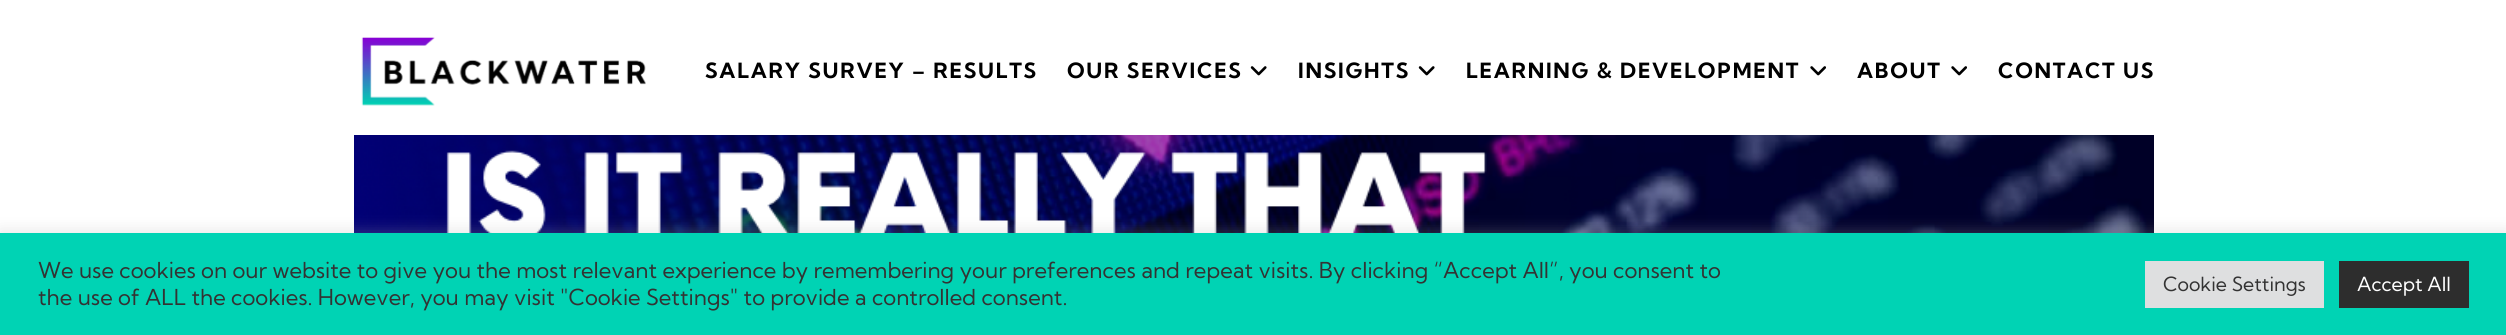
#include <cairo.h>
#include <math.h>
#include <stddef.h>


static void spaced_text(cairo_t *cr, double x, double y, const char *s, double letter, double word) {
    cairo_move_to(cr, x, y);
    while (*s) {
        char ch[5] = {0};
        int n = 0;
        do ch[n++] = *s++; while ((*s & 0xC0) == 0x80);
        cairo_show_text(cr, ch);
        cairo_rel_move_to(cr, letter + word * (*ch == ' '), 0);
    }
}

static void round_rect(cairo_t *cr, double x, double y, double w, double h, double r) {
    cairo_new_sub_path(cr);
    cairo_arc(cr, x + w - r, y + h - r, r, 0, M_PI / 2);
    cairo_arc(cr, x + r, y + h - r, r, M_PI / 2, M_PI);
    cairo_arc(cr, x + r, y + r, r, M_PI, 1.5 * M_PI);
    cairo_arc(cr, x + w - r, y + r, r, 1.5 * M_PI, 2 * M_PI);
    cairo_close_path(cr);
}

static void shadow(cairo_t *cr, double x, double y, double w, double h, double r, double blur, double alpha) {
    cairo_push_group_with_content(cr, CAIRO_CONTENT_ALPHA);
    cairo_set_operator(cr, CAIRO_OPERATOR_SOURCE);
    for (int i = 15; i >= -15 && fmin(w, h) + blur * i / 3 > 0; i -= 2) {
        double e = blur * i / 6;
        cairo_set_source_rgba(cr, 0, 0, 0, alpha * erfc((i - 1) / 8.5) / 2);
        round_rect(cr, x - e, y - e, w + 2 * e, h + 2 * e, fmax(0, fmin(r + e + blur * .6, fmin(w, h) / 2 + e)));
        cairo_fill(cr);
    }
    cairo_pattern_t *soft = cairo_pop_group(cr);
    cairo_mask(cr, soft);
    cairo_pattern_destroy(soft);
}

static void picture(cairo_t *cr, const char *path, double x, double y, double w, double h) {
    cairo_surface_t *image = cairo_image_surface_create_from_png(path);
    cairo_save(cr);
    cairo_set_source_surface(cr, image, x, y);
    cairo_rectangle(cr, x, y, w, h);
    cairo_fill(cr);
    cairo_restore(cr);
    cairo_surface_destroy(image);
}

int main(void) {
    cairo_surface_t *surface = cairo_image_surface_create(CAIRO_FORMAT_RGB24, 2506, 335);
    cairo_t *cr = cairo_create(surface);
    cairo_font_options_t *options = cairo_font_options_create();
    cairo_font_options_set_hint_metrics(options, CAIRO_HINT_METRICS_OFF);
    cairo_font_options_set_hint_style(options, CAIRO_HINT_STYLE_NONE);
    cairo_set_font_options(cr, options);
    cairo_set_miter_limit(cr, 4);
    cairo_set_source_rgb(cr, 1, 1, 1);
    cairo_paint(cr);
    picture(cr, "img1.png", 361, 37, 285, 69);
    cairo_select_font_face(cr, "Kumbh Sans", CAIRO_FONT_SLANT_NORMAL, CAIRO_FONT_WEIGHT_BOLD);
    cairo_set_font_size(cr, 21);
    cairo_set_source_rgb(cr, 0, 0, 0);
    spaced_text(cr, 705, 78, "SALARY SURVEY – RESULTS", 1.75, 0);
    spaced_text(cr, 1067, 78, "OUR SERVICES", 1.75, 0);
    picture(cr, "img2.png", 1250, 66, 17, 10);
    spaced_text(cr, 1298, 78, "INSIGHTS", 1.75, 0);
    picture(cr, "img2.png", 1418, 66, 17, 10);
    spaced_text(cr, 1466, 78, "LEARNING & DEVELOPMENT", 1.75, 0);
    picture(cr, "img3.png", 1810, 66, 16, 10);
    spaced_text(cr, 1857, 78, "ABOUT", 1.75, 0);
    picture(cr, "img3.png", 1951, 66, 16, 10);
    spaced_text(cr, 1998, 78, "CONTACT US", 1.75, 0);
    picture(cr, "img4.png", 354, 135, 1800, 98);
    cairo_set_source_rgb(cr, 0.675, 0.671, 0.671);
    shadow(cr, 0, 231, 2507, 104, 0, 7.5, 0.3);
    cairo_set_source_rgb(cr, 0, 0.827, 0.706);
    cairo_rectangle(cr, 0, 233, 2506, 102);
    cairo_fill(cr);
    cairo_select_font_face(cr, "Kumbh Sans", CAIRO_FONT_SLANT_NORMAL, CAIRO_FONT_WEIGHT_NORMAL);
    cairo_set_font_size(cr, 22);
    cairo_set_source_rgb(cr, 0.2, 0.2, 0.2);
    cairo_move_to(cr, 38, 278);
    cairo_show_text(cr, "We use cookies on our website to give you the most relevant experience by remembering your preferences and repeat visits. By clicking “Accept All”, you consent to");
    cairo_move_to(cr, 38, 305);
    cairo_show_text(cr, "the use of ALL the cookies. However, you may visit \"Cookie Settings\" to provide a controlled consent.");
    cairo_set_source_rgb(cr, 0.871, 0.875, 0.878);
    cairo_rectangle(cr, 2145, 261, 179, 47);
    cairo_fill(cr);
    cairo_set_font_size(cr, 19.5);
    cairo_set_source_rgb(cr, 0.2, 0.2, 0.2);
    cairo_move_to(cr, 2163, 291);
    cairo_show_text(cr, "Cookie Settings");
    cairo_set_source_rgb(cr, 0.176, 0.176, 0.176);
    cairo_rectangle(cr, 2339, 261, 130, 47);
    cairo_fill(cr);
    cairo_set_source_rgb(cr, 1, 1, 1);
    cairo_move_to(cr, 2357, 291);
    cairo_show_text(cr, "Accept All");
    cairo_surface_write_to_png(surface, "page.png");
    cairo_font_options_destroy(options);
    cairo_destroy(cr);
    cairo_surface_destroy(surface);
    return 0;
}
